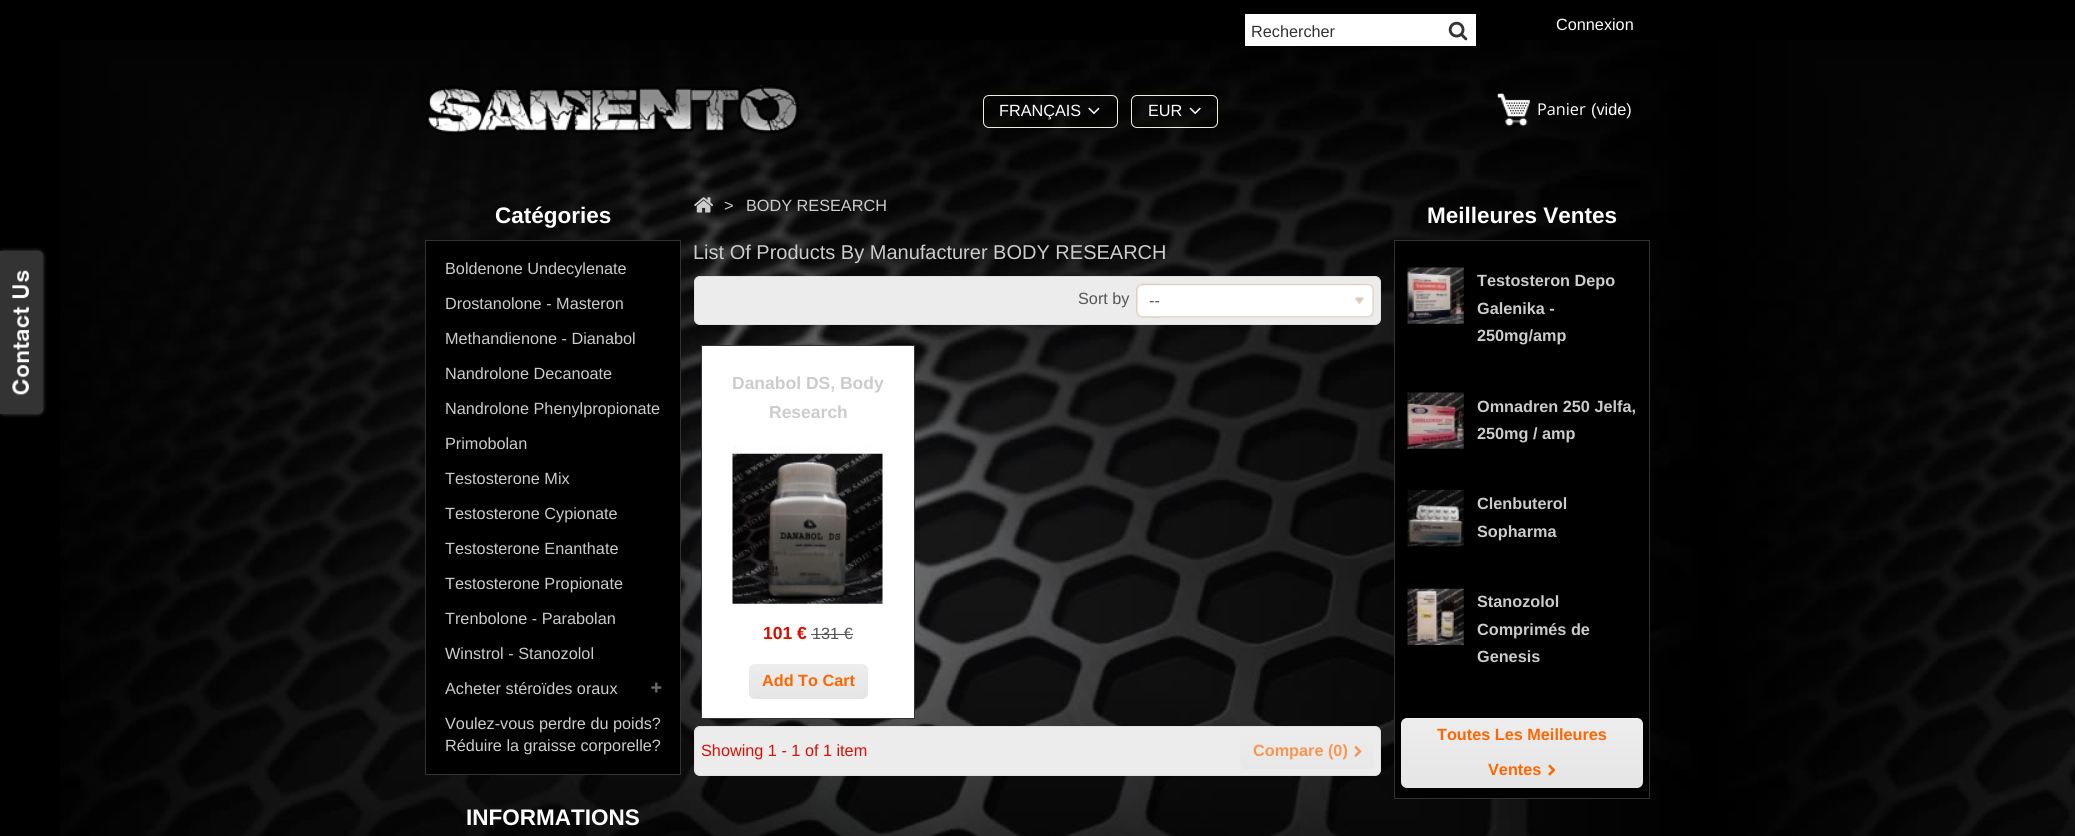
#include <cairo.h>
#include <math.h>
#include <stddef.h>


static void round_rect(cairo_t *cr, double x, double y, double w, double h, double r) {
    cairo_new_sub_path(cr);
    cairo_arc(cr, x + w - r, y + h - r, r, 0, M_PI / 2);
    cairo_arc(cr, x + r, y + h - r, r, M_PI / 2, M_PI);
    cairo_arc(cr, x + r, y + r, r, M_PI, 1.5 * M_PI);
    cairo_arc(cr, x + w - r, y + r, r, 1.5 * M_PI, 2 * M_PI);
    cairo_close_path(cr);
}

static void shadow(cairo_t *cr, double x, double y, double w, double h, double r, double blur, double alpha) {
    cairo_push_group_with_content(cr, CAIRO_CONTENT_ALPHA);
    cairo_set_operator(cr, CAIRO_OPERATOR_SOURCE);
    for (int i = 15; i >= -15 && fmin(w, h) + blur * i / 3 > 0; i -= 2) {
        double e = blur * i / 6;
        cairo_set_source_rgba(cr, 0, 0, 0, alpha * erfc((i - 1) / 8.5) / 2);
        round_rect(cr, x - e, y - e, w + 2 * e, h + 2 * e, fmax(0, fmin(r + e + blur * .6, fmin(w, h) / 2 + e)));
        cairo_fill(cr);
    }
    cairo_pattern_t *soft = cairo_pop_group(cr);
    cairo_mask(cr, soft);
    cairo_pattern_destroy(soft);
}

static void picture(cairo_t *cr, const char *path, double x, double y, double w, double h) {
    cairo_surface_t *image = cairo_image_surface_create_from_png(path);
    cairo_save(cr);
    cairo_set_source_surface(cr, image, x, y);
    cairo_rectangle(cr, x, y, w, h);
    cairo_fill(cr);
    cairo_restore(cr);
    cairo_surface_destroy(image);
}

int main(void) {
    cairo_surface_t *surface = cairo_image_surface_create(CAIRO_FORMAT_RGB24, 2075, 836);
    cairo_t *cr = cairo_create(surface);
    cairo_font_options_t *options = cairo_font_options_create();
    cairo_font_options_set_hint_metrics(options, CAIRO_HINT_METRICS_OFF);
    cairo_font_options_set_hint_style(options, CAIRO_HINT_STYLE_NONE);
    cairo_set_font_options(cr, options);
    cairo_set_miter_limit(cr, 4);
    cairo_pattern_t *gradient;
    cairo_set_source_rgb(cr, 0, 0, 0);
    cairo_paint(cr);
    picture(cr, "img1.png", 60, 40, 2015, 796);
    cairo_set_source_rgb(cr, 0.502, 0.502, 0.502);
    shadow(cr, -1, 251, 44, 163, 5, 2, 0.6);
    cairo_set_source_rgb(cr, 0.2, 0.2, 0.2);
    cairo_new_path(cr);
    cairo_move_to(cr, -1, 251);
    cairo_line_to(cr, 38, 251);
    cairo_curve_to(cr, 41, 251, 43, 253, 43, 256);
    cairo_line_to(cr, 43, 409);
    cairo_curve_to(cr, 43, 412, 41, 414, 38, 414);
    cairo_line_to(cr, -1, 414);
    cairo_close_path(cr);
    cairo_fill(cr);
    picture(cr, "img2.png", 12, 270, 17, 126);
    cairo_set_source_rgb(cr, 1, 1, 1);
    cairo_rectangle(cr, 1245, 14, 231, 32);
    cairo_fill(cr);
    cairo_select_font_face(cr, "Liberation Sans", CAIRO_FONT_SLANT_NORMAL, CAIRO_FONT_WEIGHT_NORMAL);
    cairo_set_font_size(cr, 16.25);
    cairo_set_source_rgb(cr, 0.2, 0.2, 0.2);
    cairo_move_to(cr, 1251, 37);
    cairo_show_text(cr, "Rechercher");
    picture(cr, "img3.png", 1448, 21, 20, 20);
    cairo_set_source_rgb(cr, 1, 1, 1);
    cairo_move_to(cr, 1556, 30);
    cairo_show_text(cr, "Connexion");
    picture(cr, "img4.png", 426, 85, 374, 50);
    round_rect(cr, 983.5, 95.5, 134, 32, 5.5);
    cairo_set_source_rgb(cr, 0.945, 0.922, 0.878);
    cairo_set_line_width(cr, 1);
    cairo_stroke(cr);
    cairo_set_source_rgb(cr, 1, 1, 1);
    cairo_move_to(cr, 999, 116);
    cairo_show_text(cr, "FRANÇAIS");
    picture(cr, "img5.png", 1088, 107, 12, 8);
    round_rect(cr, 1131.5, 95.5, 86, 32, 5.5);
    cairo_set_source_rgb(cr, 0.945, 0.922, 0.878);
    cairo_stroke(cr);
    cairo_set_source_rgb(cr, 1, 1, 1);
    cairo_move_to(cr, 1148, 116);
    cairo_show_text(cr, "EUR");
    picture(cr, "img6.png", 1189, 107, 12, 8);
    picture(cr, "img7.png", 1497, 93, 33, 34);
    cairo_select_font_face(cr, "Open Sans", CAIRO_FONT_SLANT_NORMAL, CAIRO_FONT_WEIGHT_NORMAL);
    cairo_move_to(cr, 1537, 115);
    cairo_show_text(cr, "Panier");
    cairo_select_font_face(cr, "Liberation Sans", CAIRO_FONT_SLANT_NORMAL, CAIRO_FONT_WEIGHT_NORMAL);
    cairo_move_to(cr, 1591, 115);
    cairo_show_text(cr, "(vide)");
    cairo_select_font_face(cr, "Liberation Sans", CAIRO_FONT_SLANT_NORMAL, CAIRO_FONT_WEIGHT_BOLD);
    cairo_set_font_size(cr, 22.5);
    cairo_move_to(cr, 495, 223);
    cairo_show_text(cr, "Catégories");
    cairo_set_source_rgb(cr, 0, 0, 0);
    cairo_rectangle(cr, 425.5, 240.5, 255, 534);
    cairo_fill_preserve(cr);
    cairo_set_source_rgb(cr, 0.2, 0.2, 0.2);
    cairo_stroke(cr);
    cairo_select_font_face(cr, "Liberation Sans", CAIRO_FONT_SLANT_NORMAL, CAIRO_FONT_WEIGHT_NORMAL);
    cairo_set_font_size(cr, 16.25);
    cairo_set_source_rgb(cr, 0.8, 0.8, 0.8);
    cairo_move_to(cr, 445, 274);
    cairo_show_text(cr, "Boldenone Undecylenate");
    cairo_move_to(cr, 445, 309);
    cairo_show_text(cr, "Drostanolone - Masteron");
    cairo_move_to(cr, 445, 344);
    cairo_show_text(cr, "Methandienone - Dianabol");
    cairo_move_to(cr, 445, 379);
    cairo_show_text(cr, "Nandrolone Decanoate");
    cairo_move_to(cr, 445, 414);
    cairo_show_text(cr, "Nandrolone Phenylpropionate");
    cairo_move_to(cr, 445, 449);
    cairo_show_text(cr, "Primobolan");
    cairo_move_to(cr, 445, 484);
    cairo_show_text(cr, "Testosterone Mix");
    cairo_move_to(cr, 445, 519);
    cairo_show_text(cr, "Testosterone Cypionate");
    cairo_move_to(cr, 445, 554);
    cairo_show_text(cr, "Testosterone Enanthate");
    cairo_move_to(cr, 445, 589);
    cairo_show_text(cr, "Testosterone Propionate");
    cairo_move_to(cr, 445, 624);
    cairo_show_text(cr, "Trenbolone - Parabolan");
    cairo_move_to(cr, 445, 659);
    cairo_show_text(cr, "Winstrol - Stanozolol");
    cairo_move_to(cr, 445, 694);
    cairo_show_text(cr, "Acheter stéroïdes oraux");
    picture(cr, "img8.png", 651, 682, 11, 11);
    cairo_move_to(cr, 445, 729);
    cairo_show_text(cr, "Voulez-vous perdre du poids?");
    cairo_move_to(cr, 445, 751);
    cairo_show_text(cr, "Réduire la graisse corporelle?");
    cairo_select_font_face(cr, "Liberation Sans", CAIRO_FONT_SLANT_NORMAL, CAIRO_FONT_WEIGHT_BOLD);
    cairo_set_font_size(cr, 22.5);
    cairo_set_source_rgb(cr, 1, 1, 1);
    cairo_move_to(cr, 466, 825);
    cairo_show_text(cr, "INFORMATIONS");
    picture(cr, "img9.png", 694, 197, 20, 16);
    cairo_select_font_face(cr, "Liberation Sans", CAIRO_FONT_SLANT_NORMAL, CAIRO_FONT_WEIGHT_NORMAL);
    cairo_set_font_size(cr, 16.25);
    cairo_set_source_rgb(cr, 0.8, 0.8, 0.8);
    cairo_move_to(cr, 724, 211);
    cairo_show_text(cr, ">");
    cairo_move_to(cr, 746, 211);
    cairo_show_text(cr, "BODY RESEARCH");
    cairo_set_font_size(cr, 20);
    cairo_move_to(cr, 693, 259);
    cairo_show_text(cr, "List Of Products By Manufacturer BODY RESEARCH");
    cairo_set_source_rgb(cr, 0.922, 0.922, 0.922);
    round_rect(cr, 694.5, 276.5, 686, 48, 5.5);
    cairo_fill_preserve(cr);
    cairo_set_source_rgb(cr, 0.882, 0.882, 0.882);
    cairo_stroke(cr);
    cairo_set_font_size(cr, 16.25);
    cairo_set_source_rgb(cr, 0.333, 0.333, 0.333);
    cairo_move_to(cr, 1078, 304);
    cairo_show_text(cr, "Sort by");
    picture(cr, "img10.png", 1136, 283, 25, 35);
    picture(cr, "img11.png", 1149, 284, 225, 34);
    cairo_move_to(cr, 1149, 306);
    cairo_show_text(cr, "--");
    cairo_set_source_rgb(cr, 1, 1, 1);
    cairo_rectangle(cr, 701.5, 345.5, 213, 373);
    cairo_fill_preserve(cr);
    cairo_set_source_rgb(cr, 0.2, 0.2, 0.2);
    cairo_stroke(cr);
    cairo_select_font_face(cr, "Liberation Sans", CAIRO_FONT_SLANT_NORMAL, CAIRO_FONT_WEIGHT_BOLD);
    cairo_set_font_size(cr, 17.5);
    cairo_set_source_rgb(cr, 0.8, 0.8, 0.8);
    cairo_move_to(cr, 732, 389);
    cairo_show_text(cr, "Danabol DS, Body");
    cairo_move_to(cr, 769, 418);
    cairo_show_text(cr, "Research");
    picture(cr, "img12.png", 732, 445, 151, 160);
    cairo_set_source_rgb(cr, 0.855, 0.059, 0);
    cairo_move_to(cr, 763, 639);
    cairo_show_text(cr, "101 €");
    cairo_select_font_face(cr, "Liberation Sans", CAIRO_FONT_SLANT_NORMAL, CAIRO_FONT_WEIGHT_NORMAL);
    cairo_set_font_size(cr, 16.25);
    cairo_set_source_rgb(cr, 0.333, 0.333, 0.333);
    cairo_move_to(cr, 812, 639);
    cairo_show_text(cr, "131 €");
    cairo_rectangle(cr, 811, 634, 42, 1);
    cairo_fill(cr);
    gradient = cairo_pattern_create_linear(808, 664, 808, 699);
    cairo_pattern_add_color_stop_rgba(gradient, 0, 0.929, 0.929, 0.929, 1);
    cairo_pattern_add_color_stop_rgba(gradient, 1, 0.898, 0.898, 0.898, 1);
    cairo_set_source(cr, gradient);
    cairo_pattern_destroy(gradient);
    round_rect(cr, 749, 664, 119, 35, 6);
    cairo_fill(cr);
    cairo_select_font_face(cr, "Liberation Sans", CAIRO_FONT_SLANT_NORMAL, CAIRO_FONT_WEIGHT_BOLD);
    cairo_set_source_rgb(cr, 1, 0.4, 0);
    cairo_move_to(cr, 762, 686);
    cairo_show_text(cr, "Add To Cart");
    cairo_set_source_rgb(cr, 0.922, 0.922, 0.922);
    round_rect(cr, 694.5, 726.5, 686, 49, 5.5);
    cairo_fill_preserve(cr);
    cairo_set_source_rgb(cr, 0.882, 0.882, 0.882);
    cairo_stroke(cr);
    cairo_select_font_face(cr, "Liberation Sans", CAIRO_FONT_SLANT_NORMAL, CAIRO_FONT_WEIGHT_NORMAL);
    cairo_set_source_rgb(cr, 0.855, 0.059, 0);
    cairo_move_to(cr, 701, 756);
    cairo_show_text(cr, "Showing 1 - 1 of 1 item");
    gradient = cairo_pattern_create_linear(1307, 734, 1307, 769);
    cairo_pattern_add_color_stop_rgba(gradient, 0, 0.925, 0.925, 0.925, 1);
    cairo_pattern_add_color_stop_rgba(gradient, 1, 0.906, 0.906, 0.906, 1);
    cairo_set_source(cr, gradient);
    cairo_pattern_destroy(gradient);
    round_rect(cr, 1240, 734, 134, 35, 6);
    cairo_fill(cr);
    cairo_select_font_face(cr, "Liberation Sans", CAIRO_FONT_SLANT_NORMAL, CAIRO_FONT_WEIGHT_BOLD);
    cairo_set_source_rgb(cr, 0.973, 0.584, 0.322);
    cairo_move_to(cr, 1253, 756);
    cairo_show_text(cr, "Compare (0)");
    picture(cr, "img13.png", 1354, 746, 8, 11);
    cairo_set_font_size(cr, 22.5);
    cairo_set_source_rgb(cr, 1, 1, 1);
    cairo_move_to(cr, 1427, 223);
    cairo_show_text(cr, "Meilleures Ventes");
    cairo_set_source_rgb(cr, 0, 0, 0);
    cairo_rectangle(cr, 1394.5, 240.5, 255, 558);
    cairo_fill_preserve(cr);
    cairo_set_source_rgb(cr, 0.2, 0.2, 0.2);
    cairo_stroke(cr);
    picture(cr, "img14.png", 1407, 267, 57, 57);
    cairo_set_font_size(cr, 16.25);
    cairo_set_source_rgb(cr, 0.8, 0.8, 0.8);
    cairo_move_to(cr, 1477, 286);
    cairo_show_text(cr, "Testosteron Depo");
    cairo_move_to(cr, 1477, 314);
    cairo_show_text(cr, "Galenika -");
    cairo_move_to(cr, 1477, 341);
    cairo_show_text(cr, "250mg/amp");
    picture(cr, "img15.png", 1407, 392, 57, 57);
    cairo_move_to(cr, 1477, 412);
    cairo_show_text(cr, "Omnadren 250 Jelfa,");
    cairo_move_to(cr, 1477, 439);
    cairo_show_text(cr, "250mg / amp");
    picture(cr, "img16.png", 1407, 490, 57, 57);
    cairo_move_to(cr, 1477, 509);
    cairo_show_text(cr, "Clenbuterol");
    cairo_move_to(cr, 1477, 537);
    cairo_show_text(cr, "Sopharma");
    picture(cr, "img17.png", 1407, 588, 57, 57);
    cairo_move_to(cr, 1477, 607);
    cairo_show_text(cr, "Stanozolol");
    cairo_move_to(cr, 1477, 635);
    cairo_show_text(cr, "Comprimés de");
    cairo_move_to(cr, 1477, 662);
    cairo_show_text(cr, "Genesis");
    gradient = cairo_pattern_create_linear(1522, 718, 1522, 788);
    cairo_pattern_add_color_stop_rgba(gradient, 0, 0.929, 0.929, 0.929, 1);
    cairo_pattern_add_color_stop_rgba(gradient, 1, 0.898, 0.898, 0.898, 1);
    cairo_set_source(cr, gradient);
    cairo_pattern_destroy(gradient);
    round_rect(cr, 1401, 718, 242, 70, 6);
    cairo_fill(cr);
    cairo_set_source_rgb(cr, 1, 0.4, 0);
    cairo_move_to(cr, 1437, 740);
    cairo_show_text(cr, "Toutes Les Meilleures");
    cairo_move_to(cr, 1488, 775);
    cairo_show_text(cr, "Ventes");
    picture(cr, "img18.png", 1548, 764, 8, 12);
    cairo_surface_write_to_png(surface, "page.png");
    cairo_font_options_destroy(options);
    cairo_destroy(cr);
    cairo_surface_destroy(surface);
    return 0;
}
